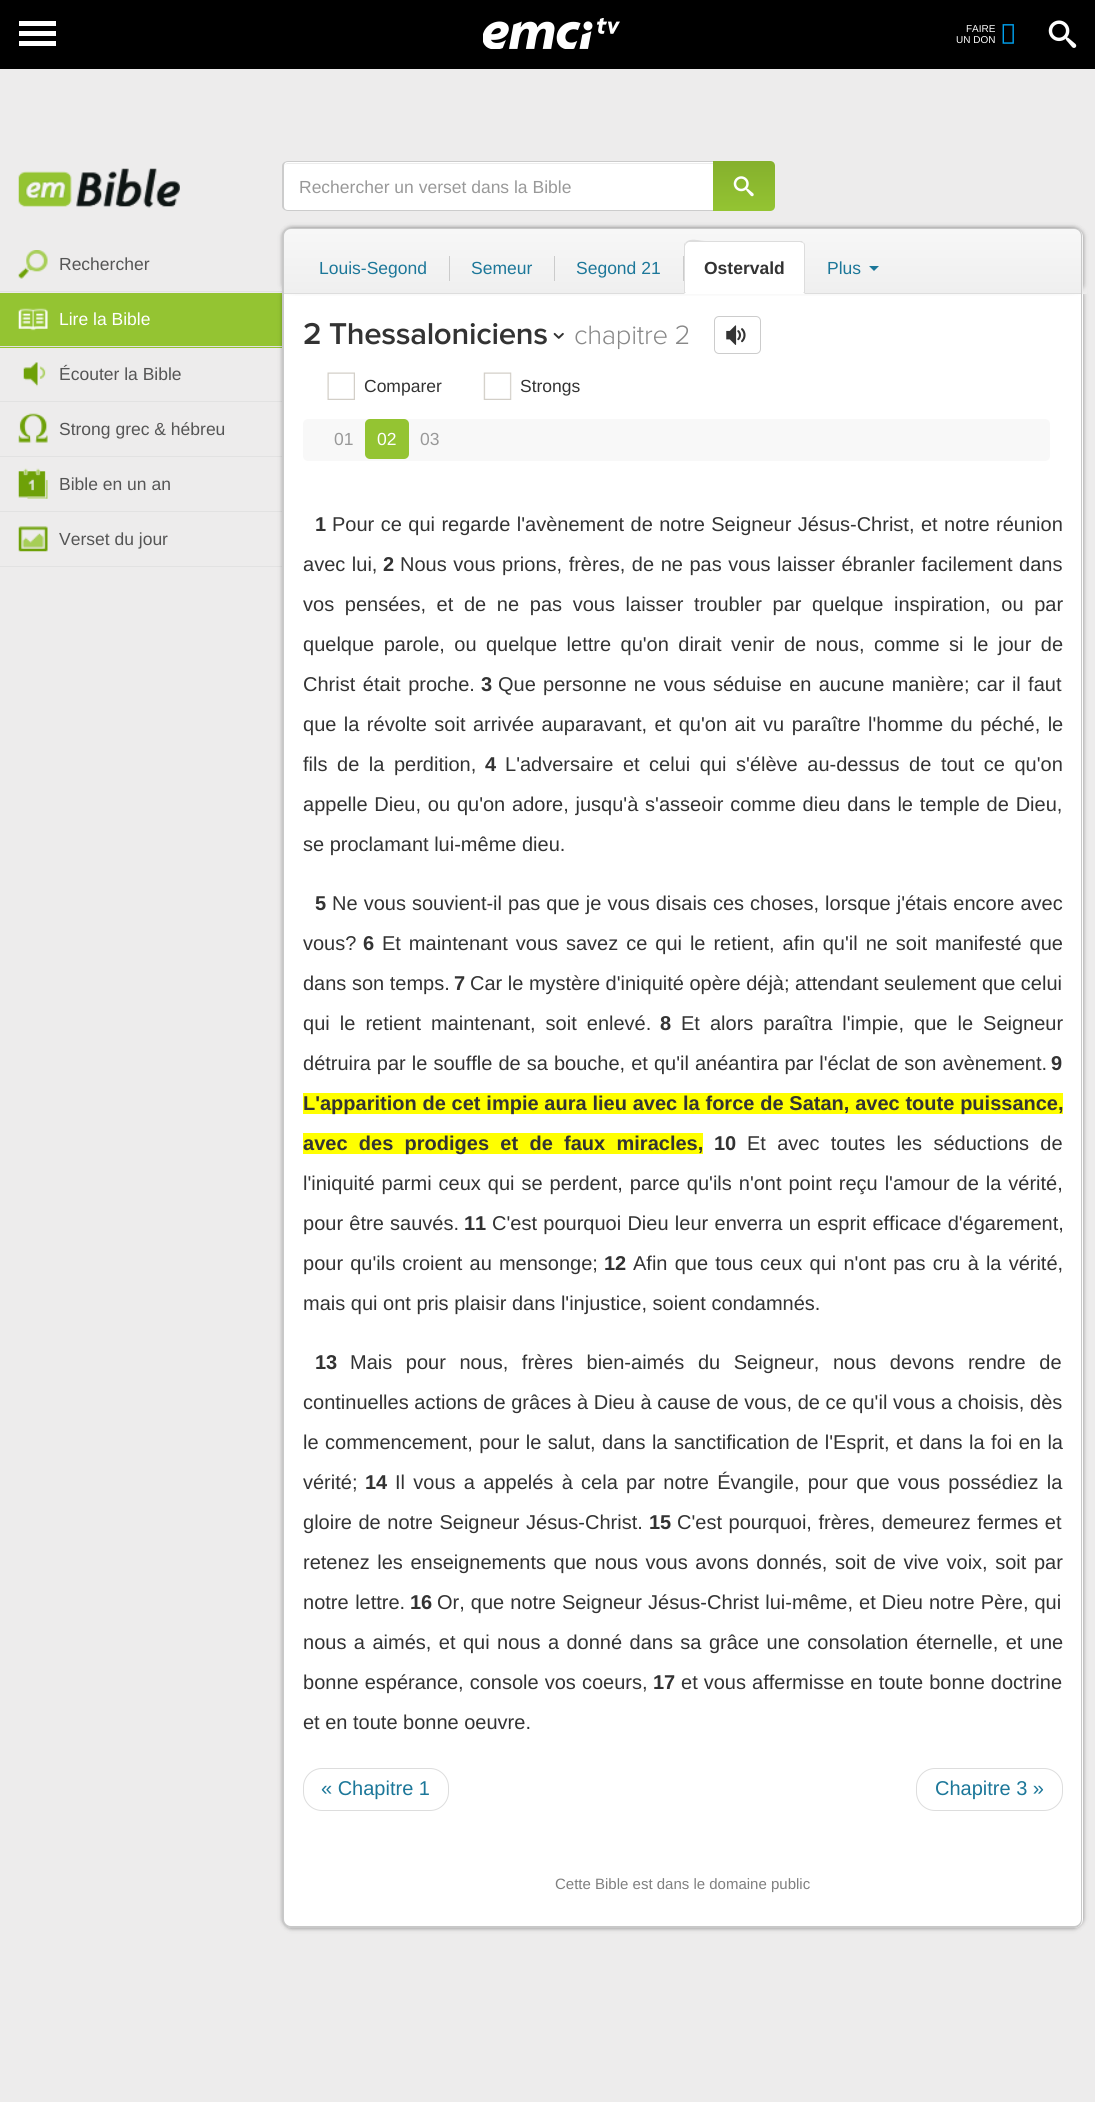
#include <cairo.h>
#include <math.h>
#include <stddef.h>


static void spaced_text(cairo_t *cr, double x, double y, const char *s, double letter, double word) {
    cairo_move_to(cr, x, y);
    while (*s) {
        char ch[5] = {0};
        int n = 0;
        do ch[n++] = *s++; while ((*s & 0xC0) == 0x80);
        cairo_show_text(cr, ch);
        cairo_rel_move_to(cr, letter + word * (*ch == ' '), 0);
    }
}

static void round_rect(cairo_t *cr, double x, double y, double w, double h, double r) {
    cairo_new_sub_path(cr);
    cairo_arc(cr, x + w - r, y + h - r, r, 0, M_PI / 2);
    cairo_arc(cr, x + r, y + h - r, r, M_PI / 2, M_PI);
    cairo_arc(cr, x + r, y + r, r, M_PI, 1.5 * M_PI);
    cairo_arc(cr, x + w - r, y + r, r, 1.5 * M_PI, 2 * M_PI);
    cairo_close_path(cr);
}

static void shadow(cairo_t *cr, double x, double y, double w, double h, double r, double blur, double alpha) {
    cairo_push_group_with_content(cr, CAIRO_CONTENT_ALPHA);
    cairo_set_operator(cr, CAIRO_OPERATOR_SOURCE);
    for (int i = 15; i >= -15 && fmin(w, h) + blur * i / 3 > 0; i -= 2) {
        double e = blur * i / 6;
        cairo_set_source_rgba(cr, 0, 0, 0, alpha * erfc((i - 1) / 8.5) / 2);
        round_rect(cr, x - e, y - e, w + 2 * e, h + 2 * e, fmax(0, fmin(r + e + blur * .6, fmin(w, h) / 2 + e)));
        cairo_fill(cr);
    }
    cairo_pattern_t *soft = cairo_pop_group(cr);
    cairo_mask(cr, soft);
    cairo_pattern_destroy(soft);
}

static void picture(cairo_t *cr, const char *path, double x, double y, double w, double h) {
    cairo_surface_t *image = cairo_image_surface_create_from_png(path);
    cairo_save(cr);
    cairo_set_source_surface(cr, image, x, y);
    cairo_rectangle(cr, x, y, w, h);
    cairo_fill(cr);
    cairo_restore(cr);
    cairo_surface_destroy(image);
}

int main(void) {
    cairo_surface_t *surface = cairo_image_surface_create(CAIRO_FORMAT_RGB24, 1095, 2102);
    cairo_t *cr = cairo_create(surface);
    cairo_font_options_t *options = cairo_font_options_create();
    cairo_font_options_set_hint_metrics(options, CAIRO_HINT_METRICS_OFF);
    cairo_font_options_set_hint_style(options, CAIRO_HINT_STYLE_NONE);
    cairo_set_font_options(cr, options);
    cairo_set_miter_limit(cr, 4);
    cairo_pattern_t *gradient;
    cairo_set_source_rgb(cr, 0.929, 0.925, 0.925);
    cairo_paint(cr);
    cairo_set_source_rgb(cr, 0, 0, 0);
    cairo_rectangle(cr, 0, 0, 1095, 69);
    cairo_fill(cr);
    cairo_set_source_rgb(cr, 1, 1, 1);
    cairo_rectangle(cr, 19, 21, 37, 5);
    cairo_fill(cr);
    cairo_rectangle(cr, 19, 31, 37, 5);
    cairo_fill(cr);
    cairo_rectangle(cr, 19, 41, 37, 5);
    cairo_fill(cr);
    picture(cr, "img1.png", 483, 18, 137, 31);
    cairo_select_font_face(cr, "Liberation Sans", CAIRO_FONT_SLANT_NORMAL, CAIRO_FONT_WEIGHT_NORMAL);
    cairo_set_font_size(cr, 10);
    cairo_move_to(cr, 966, 32);
    cairo_show_text(cr, "FAIRE");
    cairo_move_to(cr, 956, 43);
    cairo_show_text(cr, "UN DON");
    picture(cr, "img2.png", 1002, 24, 12, 20);
    picture(cr, "img3.png", 1048, 20, 29, 28);
    cairo_set_source_rgb(cr, 0.886, 0.886, 0.886);
    cairo_rectangle(cr, 0, 291, 283, 1);
    cairo_fill(cr);
    cairo_set_source_rgb(cr, 0.58, 0.769, 0.196);
    cairo_rectangle(cr, 0, 293, 282, 55);
    cairo_fill(cr);
    cairo_set_source_rgb(cr, 0.886, 0.886, 0.886);
    cairo_rectangle(cr, 0, 346, 283, 1);
    cairo_fill(cr);
    cairo_rectangle(cr, 0, 401, 283, 1);
    cairo_fill(cr);
    cairo_rectangle(cr, 0, 456, 283, 1);
    cairo_fill(cr);
    cairo_rectangle(cr, 0, 511, 283, 1);
    cairo_fill(cr);
    cairo_rectangle(cr, 0, 566, 283, 1);
    cairo_fill(cr);
    cairo_set_source_rgb(cr, 0, 0, 0);
    shadow(cr, 290, 290, 793, 1634, 5, 2.5, 0.4);
    shadow(cr, 283, 290, 792, 1634, 5, 2.5, 0.4);
    shadow(cr, 286, 294, 793, 1634, 5, 2.5, 0.4);
    cairo_set_source_rgb(cr, 1, 1, 1);
    cairo_new_path(cr);
    cairo_move_to(cr, 283, 286);
    cairo_line_to(cr, 1083, 286);
    cairo_line_to(cr, 1083, 1919);
    cairo_curve_to(cr, 1083, 1924, 1079, 1928, 1074, 1928);
    cairo_line_to(cr, 292, 1928);
    cairo_curve_to(cr, 287, 1928, 283, 1924, 283, 1919);
    cairo_close_path(cr);
    cairo_fill(cr);
    cairo_set_source_rgb(cr, 0.784, 0.784, 0.784);
    cairo_set_fill_rule(cr, CAIRO_FILL_RULE_EVEN_ODD);
    cairo_new_path(cr);
    cairo_move_to(cr, 282, 286);
    cairo_line_to(cr, 1082, 286);
    cairo_line_to(cr, 1082, 1919);
    cairo_curve_to(cr, 1082, 1924, 1079, 1928, 1074, 1928);
    cairo_line_to(cr, 291, 1928);
    cairo_curve_to(cr, 286, 1928, 282, 1924, 282, 1919);
    cairo_close_path(cr);
    cairo_move_to(cr, 284, 286);
    cairo_line_to(cr, 1081, 286);
    cairo_line_to(cr, 1081, 1919);
    cairo_curve_to(cr, 1081, 1923, 1078, 1926, 1074, 1926);
    cairo_line_to(cr, 291, 1926);
    cairo_curve_to(cr, 287, 1926, 284, 1923, 284, 1919);
    cairo_close_path(cr);
    cairo_fill(cr);
    cairo_set_source_rgb(cr, 0.929, 0.925, 0.925);
    cairo_rectangle(cr, 283, 285, 804, 9);
    cairo_fill(cr);
    cairo_set_source_rgb(cr, 1, 1, 1);
    cairo_new_path(cr);
    cairo_move_to(cr, 288, 161);
    cairo_line_to(cr, 714, 161);
    cairo_line_to(cr, 714, 211);
    cairo_line_to(cr, 288, 211);
    cairo_curve_to(cr, 285, 211, 283, 209, 283, 206);
    cairo_line_to(cr, 283, 166);
    cairo_curve_to(cr, 283, 163, 285, 161, 288, 161);
    cairo_close_path(cr);
    cairo_fill(cr);
    cairo_set_source_rgb(cr, 0.925, 0.925, 0.925);
    cairo_set_fill_rule(cr, CAIRO_FILL_RULE_WINDING);
    cairo_new_path(cr);
    cairo_move_to(cr, 288, 164);
    cairo_line_to(cr, 714, 164);
    cairo_line_to(cr, 714, 163);
    cairo_line_to(cr, 288, 163);
    cairo_curve_to(cr, 286, 163, 284, 165, 284, 167);
    cairo_line_to(cr, 284, 168);
    cairo_curve_to(cr, 284, 165, 285, 164, 288, 164);
    cairo_close_path(cr);
    cairo_fill(cr);
    cairo_set_source_rgb(cr, 0.8, 0.8, 0.8);
    cairo_set_fill_rule(cr, CAIRO_FILL_RULE_EVEN_ODD);
    cairo_new_path(cr);
    cairo_move_to(cr, 288, 161);
    cairo_line_to(cr, 714, 161);
    cairo_line_to(cr, 714, 211);
    cairo_line_to(cr, 288, 211);
    cairo_curve_to(cr, 285, 211, 282, 209, 282, 206);
    cairo_line_to(cr, 282, 166);
    cairo_curve_to(cr, 282, 163, 285, 161, 288, 161);
    cairo_close_path(cr);
    cairo_move_to(cr, 288, 162);
    cairo_line_to(cr, 714, 162);
    cairo_line_to(cr, 714, 210);
    cairo_line_to(cr, 288, 210);
    cairo_curve_to(cr, 285, 210, 284, 208, 284, 206);
    cairo_line_to(cr, 284, 166);
    cairo_curve_to(cr, 284, 164, 285, 162, 288, 162);
    cairo_close_path(cr);
    cairo_fill(cr);
    cairo_set_font_size(cr, 17.5);
    cairo_set_source_rgb(cr, 0.6, 0.6, 0.6);
    cairo_move_to(cr, 299, 193);
    cairo_show_text(cr, "Rechercher un verset dans la Bible");
    gradient = cairo_pattern_create_linear(744, 161, 744, 211);
    cairo_pattern_add_color_stop_rgba(gradient, 0, 0.522, 0.69, 0.176, 1);
    cairo_pattern_add_color_stop_rgba(gradient, 1, 0.58, 0.769, 0.196, 1);
    cairo_set_source(cr, gradient);
    cairo_pattern_destroy(gradient);
    cairo_new_path(cr);
    cairo_move_to(cr, 713, 161);
    cairo_line_to(cr, 770, 161);
    cairo_curve_to(cr, 773, 161, 775, 163, 775, 166);
    cairo_line_to(cr, 775, 206);
    cairo_curve_to(cr, 775, 209, 773, 211, 770, 211);
    cairo_line_to(cr, 713, 211);
    cairo_close_path(cr);
    cairo_fill(cr);
    picture(cr, "img4.png", 733, 176, 21, 21);
    cairo_set_source_rgb(cr, 0, 0, 0);
    shadow(cr, 290, 231, 793, 59, 5, 2.5, 0.4);
    shadow(cr, 283, 231, 792, 59, 5, 2.5, 0.4);
    shadow(cr, 286, 228, 793, 58, 5, 2.5, 0.4);
    cairo_save(cr);
    cairo_set_fill_rule(cr, CAIRO_FILL_RULE_WINDING);
    cairo_new_path(cr);
    cairo_move_to(cr, 292, 228);
    cairo_line_to(cr, 1074, 228);
    cairo_curve_to(cr, 1079, 228, 1083, 232, 1083, 237);
    cairo_line_to(cr, 1083, 294);
    cairo_line_to(cr, 283, 294);
    cairo_line_to(cr, 283, 237);
    cairo_curve_to(cr, 283, 232, 287, 228, 292, 228);
    cairo_close_path(cr);
    cairo_clip(cr);
    gradient = cairo_pattern_create_linear(683, 229, 683, 294);
    cairo_pattern_add_color_stop_rgba(gradient, 0, 0.969, 0.969, 0.969, 1);
    cairo_pattern_add_color_stop_rgba(gradient, 1, 0.937, 0.937, 0.937, 1);
    cairo_set_source(cr, gradient);
    cairo_pattern_destroy(gradient);
    cairo_rectangle(cr, 284, 229, 799, 65);
    cairo_fill(cr);
    cairo_restore(cr);
    cairo_set_source_rgb(cr, 0.784, 0.784, 0.784);
    cairo_new_path(cr);
    cairo_move_to(cr, 291, 228);
    cairo_line_to(cr, 1074, 228);
    cairo_curve_to(cr, 1079, 228, 1082, 231, 1082, 236);
    cairo_line_to(cr, 1082, 294);
    cairo_line_to(cr, 282, 294);
    cairo_line_to(cr, 282, 236);
    cairo_curve_to(cr, 282, 231, 286, 228, 291, 228);
    cairo_close_path(cr);
    cairo_move_to(cr, 291, 229);
    cairo_line_to(cr, 1074, 229);
    cairo_curve_to(cr, 1078, 229, 1081, 232, 1081, 236);
    cairo_line_to(cr, 1081, 294);
    cairo_line_to(cr, 284, 294);
    cairo_line_to(cr, 284, 236);
    cairo_curve_to(cr, 284, 232, 287, 229, 291, 229);
    cairo_close_path(cr);
    cairo_fill(cr);
    cairo_set_source_rgb(cr, 0.867, 0.867, 0.867);
    cairo_rectangle(cr, 284, 293, 797, 1);
    cairo_fill(cr);
    cairo_set_source_rgb(cr, 0.11, 0.467, 0.6);
    cairo_move_to(cr, 319, 274);
    cairo_show_text(cr, "Louis-Segond");
    cairo_set_source_rgb(cr, 0.796, 0.796, 0.796);
    cairo_rectangle(cr, 449, 256, 1, 25);
    cairo_fill(cr);
    cairo_set_source_rgb(cr, 0.11, 0.467, 0.6);
    cairo_move_to(cr, 471, 274);
    cairo_show_text(cr, "Semeur");
    cairo_set_source_rgb(cr, 0.796, 0.796, 0.796);
    cairo_rectangle(cr, 554, 256, 1, 25);
    cairo_fill(cr);
    cairo_set_source_rgb(cr, 0.11, 0.467, 0.6);
    cairo_move_to(cr, 576, 274);
    cairo_show_text(cr, "Segond 21");
    cairo_set_source_rgb(cr, 0.796, 0.796, 0.796);
    cairo_rectangle(cr, 683, 256, 1, 25);
    cairo_fill(cr);
    cairo_set_source_rgb(cr, 1, 1, 1);
    cairo_new_path(cr);
    cairo_move_to(cr, 689, 241);
    cairo_line_to(cr, 800, 241);
    cairo_curve_to(cr, 803, 241, 805, 243, 805, 246);
    cairo_line_to(cr, 805, 294);
    cairo_line_to(cr, 684, 294);
    cairo_line_to(cr, 684, 246);
    cairo_curve_to(cr, 684, 243, 686, 241, 689, 241);
    cairo_close_path(cr);
    cairo_fill(cr);
    cairo_set_source_rgb(cr, 0.867, 0.867, 0.867);
    cairo_set_fill_rule(cr, CAIRO_FILL_RULE_WINDING);
    cairo_new_path(cr);
    cairo_move_to(cr, 689, 242);
    cairo_curve_to(cr, 688, 242, 687, 243, 686, 244);
    cairo_line_to(cr, 685, 243);
    cairo_curve_to(cr, 690, 237, 699, 241, 706, 241);
    cairo_line_to(cr, 802, 241);
    cairo_line_to(cr, 804, 243);
    cairo_line_to(cr, 803, 243);
    cairo_line_to(cr, 800, 242);
    cairo_close_path(cr);
    cairo_fill(cr);
    cairo_new_path(cr);
    cairo_move_to(cr, 805, 294);
    cairo_line_to(cr, 805, 246);
    cairo_curve_to(cr, 805, 245, 805, 243, 804, 243);
    cairo_line_to(cr, 803, 243);
    cairo_curve_to(cr, 804, 244, 804, 245, 804, 246);
    cairo_line_to(cr, 804, 292);
    cairo_line_to(cr, 803, 292);
    cairo_close_path(cr);
    cairo_fill(cr);
    cairo_new_path(cr);
    cairo_move_to(cr, 684, 294);
    cairo_line_to(cr, 684, 246);
    cairo_curve_to(cr, 684, 245, 684, 243, 685, 243);
    cairo_line_to(cr, 686, 244);
    cairo_line_to(cr, 685, 246);
    cairo_line_to(cr, 685, 292);
    cairo_line_to(cr, 686, 292);
    cairo_close_path(cr);
    cairo_fill(cr);
    cairo_select_font_face(cr, "Liberation Sans", CAIRO_FONT_SLANT_NORMAL, CAIRO_FONT_WEIGHT_BOLD);
    cairo_set_source_rgb(cr, 0.2, 0.2, 0.2);
    cairo_move_to(cr, 704, 274);
    cairo_show_text(cr, "Ostervald");
    cairo_select_font_face(cr, "Liberation Sans", CAIRO_FONT_SLANT_NORMAL, CAIRO_FONT_WEIGHT_NORMAL);
    cairo_set_source_rgb(cr, 0.11, 0.467, 0.6);
    cairo_move_to(cr, 827, 274);
    cairo_show_text(cr, "Plus");
    cairo_new_path(cr);
    cairo_move_to(cr, 869, 266);
    cairo_line_to(cr, 879, 266);
    cairo_line_to(cr, 874, 271);
    cairo_close_path(cr);
    cairo_fill(cr);
    picture(cr, "img5.png", 18, 168, 162, 40);
    picture(cr, "img6.png", 18, 250, 30, 29);
    cairo_set_source_rgb(cr, 0.333, 0.333, 0.333);
    cairo_move_to(cr, 59, 270);
    cairo_show_text(cr, "Rechercher");
    picture(cr, "img7.png", 18, 308, 30, 23);
    cairo_set_source_rgb(cr, 1, 1, 1);
    cairo_move_to(cr, 59, 325);
    cairo_show_text(cr, "Lire la Bible");
    picture(cr, "img8.png", 23, 362, 23, 25);
    cairo_set_source_rgb(cr, 0.333, 0.333, 0.333);
    cairo_move_to(cr, 59, 380);
    cairo_show_text(cr, "Écouter la Bible");
    picture(cr, "img9.png", 18, 413, 30, 30);
    cairo_move_to(cr, 59, 435);
    cairo_show_text(cr, "Strong grec & hébreu");
    picture(cr, "img10.png", 18, 468, 30, 31);
    cairo_move_to(cr, 59, 490);
    cairo_show_text(cr, "Bible en un an");
    picture(cr, "img11.png", 18, 526, 30, 26);
    cairo_move_to(cr, 59, 545);
    cairo_show_text(cr, "Verset du jour");
    cairo_select_font_face(cr, "Proxima Nova SemiBold", CAIRO_FONT_SLANT_NORMAL, CAIRO_FONT_WEIGHT_NORMAL);
    cairo_set_font_size(cr, 31.25);
    cairo_set_source_rgb(cr, 0.2, 0.2, 0.2);
    spaced_text(cr, 303, 344, "2 Thessaloniciens", -0.3, 0);
    picture(cr, "img12.png", 553, 332, 11, 7);
    cairo_select_font_face(cr, "Proxima Nova Light", CAIRO_FONT_SLANT_NORMAL, CAIRO_FONT_WEIGHT_NORMAL);
    cairo_set_font_size(cr, 27.5);
    cairo_set_source_rgb(cr, 0.533, 0.533, 0.533);
    spaced_text(cr, 574, 344, "chapitre 2", -0.3, 0);
    round_rect(cr, 714.5, 316.5, 46, 37, 4.5);
    cairo_set_source_rgb(cr, 0.8, 0.8, 0.8);
    cairo_set_line_width(cr, 1);
    cairo_stroke(cr);
    picture(cr, "img13.png", 726, 325, 20, 20);
    picture(cr, "img14.png", 327, 372, 28, 28);
    cairo_select_font_face(cr, "Liberation Sans", CAIRO_FONT_SLANT_NORMAL, CAIRO_FONT_WEIGHT_NORMAL);
    cairo_set_font_size(cr, 17.5);
    cairo_set_source_rgb(cr, 0.2, 0.2, 0.2);
    cairo_move_to(cr, 364, 392);
    cairo_show_text(cr, "Comparer");
    picture(cr, "img15.png", 483, 372, 29, 28);
    cairo_move_to(cr, 520, 392);
    cairo_show_text(cr, "Strongs");
    cairo_set_source_rgb(cr, 0.969, 0.969, 0.969);
    round_rect(cr, 303, 419, 747, 42, 5);
    cairo_fill(cr);
    cairo_set_source_rgb(cr, 0.6, 0.6, 0.6);
    cairo_move_to(cr, 334, 445);
    cairo_show_text(cr, "01");
    cairo_set_source_rgb(cr, 0.58, 0.769, 0.196);
    round_rect(cr, 365, 419, 44, 40, 5);
    cairo_fill(cr);
    cairo_set_source_rgb(cr, 1, 1, 1);
    cairo_move_to(cr, 377, 445);
    cairo_show_text(cr, "02");
    cairo_set_source_rgb(cr, 0.6, 0.6, 0.6);
    cairo_move_to(cr, 420, 445);
    cairo_show_text(cr, "03");
    cairo_select_font_face(cr, "Liberation Sans", CAIRO_FONT_SLANT_NORMAL, CAIRO_FONT_WEIGHT_BOLD);
    cairo_set_font_size(cr, 20);
    cairo_set_source_rgb(cr, 0.2, 0.2, 0.2);
    cairo_move_to(cr, 315, 531);
    cairo_show_text(cr, "1");
    cairo_select_font_face(cr, "Liberation Sans", CAIRO_FONT_SLANT_NORMAL, CAIRO_FONT_WEIGHT_NORMAL);
    spaced_text(cr, 332, 531, "Pour ce qui regarde l'avènement de notre Seigneur Jésus-Christ, et notre réunion", 0, 0.9);
    spaced_text(cr, 303, 571, "avec lui,", 0, 1);
    cairo_select_font_face(cr, "Liberation Sans", CAIRO_FONT_SLANT_NORMAL, CAIRO_FONT_WEIGHT_BOLD);
    cairo_move_to(cr, 383, 571);
    cairo_show_text(cr, "2");
    cairo_select_font_face(cr, "Liberation Sans", CAIRO_FONT_SLANT_NORMAL, CAIRO_FONT_WEIGHT_NORMAL);
    spaced_text(cr, 400, 571, "Nous vous prions, frères, de ne pas vous laisser ébranler facilement dans", 0, 1);
    spaced_text(cr, 303, 611, "vos pensées, et de ne pas vous laisser troubler par quelque inspiration, ou par", 0, 5.1);
    spaced_text(cr, 303, 651, "quelque parole, ou quelque lettre qu'on dirait venir de nous, comme si le jour de", 0, 3.9);
    spaced_text(cr, 303, 691, "Christ était proche.", 0, 2);
    cairo_select_font_face(cr, "Liberation Sans", CAIRO_FONT_SLANT_NORMAL, CAIRO_FONT_WEIGHT_BOLD);
    cairo_move_to(cr, 481, 691);
    cairo_show_text(cr, "3");
    cairo_select_font_face(cr, "Liberation Sans", CAIRO_FONT_SLANT_NORMAL, CAIRO_FONT_WEIGHT_NORMAL);
    spaced_text(cr, 498, 691, "Que personne ne vous séduise en aucune manière; car il faut", 0, 1.75);
    spaced_text(cr, 303, 731, "que la révolte soit arrivée auparavant, et qu'on ait vu paraître l'homme du péché, le", 0, 1.9);
    spaced_text(cr, 303, 771, "fils de la perdition,", 0, 4);
    cairo_select_font_face(cr, "Liberation Sans", CAIRO_FONT_SLANT_NORMAL, CAIRO_FONT_WEIGHT_BOLD);
    cairo_move_to(cr, 485, 771);
    cairo_show_text(cr, "4");
    cairo_select_font_face(cr, "Liberation Sans", CAIRO_FONT_SLANT_NORMAL, CAIRO_FONT_WEIGHT_NORMAL);
    spaced_text(cr, 505, 771, "L'adversaire et celui qui s'élève au-dessus de tout ce qu'on", 0, 4);
    spaced_text(cr, 303, 811, "appelle Dieu, ou qu'on adore, jusqu'à s'asseoir comme dieu dans le temple de Dieu,", 0, 1.25);
    cairo_move_to(cr, 303, 851);
    cairo_show_text(cr, "se proclamant lui-même dieu.");
    cairo_select_font_face(cr, "Liberation Sans", CAIRO_FONT_SLANT_NORMAL, CAIRO_FONT_WEIGHT_BOLD);
    cairo_move_to(cr, 315, 910);
    cairo_show_text(cr, "5");
    cairo_select_font_face(cr, "Liberation Sans", CAIRO_FONT_SLANT_NORMAL, CAIRO_FONT_WEIGHT_NORMAL);
    spaced_text(cr, 332, 910, "Ne vous souvient-il pas que je vous disais ces choses, lorsque j'étais encore avec", 0, 0.5);
    cairo_move_to(cr, 303, 950);
    cairo_show_text(cr, "vous?");
    cairo_select_font_face(cr, "Liberation Sans", CAIRO_FONT_SLANT_NORMAL, CAIRO_FONT_WEIGHT_BOLD);
    cairo_move_to(cr, 363, 950);
    cairo_show_text(cr, "6");
    cairo_select_font_face(cr, "Liberation Sans", CAIRO_FONT_SLANT_NORMAL, CAIRO_FONT_WEIGHT_NORMAL);
    spaced_text(cr, 382, 950, "Et maintenant vous savez ce qui le retient, afin qu'il ne soit manifesté que", 0, 2.4);
    cairo_move_to(cr, 303, 990);
    cairo_show_text(cr, "dans son temps.");
    cairo_select_font_face(cr, "Liberation Sans", CAIRO_FONT_SLANT_NORMAL, CAIRO_FONT_WEIGHT_BOLD);
    cairo_move_to(cr, 454, 990);
    cairo_show_text(cr, "7");
    cairo_select_font_face(cr, "Liberation Sans", CAIRO_FONT_SLANT_NORMAL, CAIRO_FONT_WEIGHT_NORMAL);
    cairo_move_to(cr, 470, 990);
    cairo_show_text(cr, "Car le mystère d'iniquité opère déjà; attendant seulement que celui");
    spaced_text(cr, 303, 1030, "qui le retient maintenant, soit enlevé.", 0, 4.5);
    cairo_select_font_face(cr, "Liberation Sans", CAIRO_FONT_SLANT_NORMAL, CAIRO_FONT_WEIGHT_BOLD);
    cairo_move_to(cr, 660, 1030);
    cairo_show_text(cr, "8");
    cairo_select_font_face(cr, "Liberation Sans", CAIRO_FONT_SLANT_NORMAL, CAIRO_FONT_WEIGHT_NORMAL);
    spaced_text(cr, 681, 1030, "Et alors paraîtra l'impie, que le Seigneur", 0, 4.5);
    spaced_text(cr, 303, 1070, "détruira par le souffle de sa bouche, et qu'il anéantira par l'éclat de son avènement.", 0, 0.5);
    cairo_select_font_face(cr, "Liberation Sans", CAIRO_FONT_SLANT_NORMAL, CAIRO_FONT_WEIGHT_BOLD);
    cairo_move_to(cr, 1051, 1070);
    cairo_show_text(cr, "9");
    cairo_set_source_rgb(cr, 1, 1, 0);
    cairo_rectangle(cr, 303, 1093, 760, 21);
    cairo_fill(cr);
    cairo_set_source_rgb(cr, 0.2, 0.2, 0.2);
    spaced_text(cr, 303, 1110, "L'apparition de cet impie aura lieu avec la force de Satan, avec toute puissance,", 0, 0.25);
    cairo_set_source_rgb(cr, 1, 1, 0);
    cairo_rectangle(cr, 303, 1133, 400, 21);
    cairo_fill(cr);
    cairo_set_source_rgb(cr, 0.2, 0.2, 0.2);
    spaced_text(cr, 303, 1150, "avec des prodiges et de faux miracles,", 0, 5.75);
    cairo_move_to(cr, 714, 1150);
    cairo_show_text(cr, "10");
    cairo_select_font_face(cr, "Liberation Sans", CAIRO_FONT_SLANT_NORMAL, CAIRO_FONT_WEIGHT_NORMAL);
    spaced_text(cr, 747, 1150, "Et avec toutes les séductions de", 0, 5.75);
    spaced_text(cr, 303, 1190, "l'iniquité parmi ceux qui se perdent, parce qu'ils n'ont point reçu l'amour de la vérité,", 0, 1.4);
    spaced_text(cr, 303, 1230, "pour être sauvés.", 0, 0.75);
    cairo_select_font_face(cr, "Liberation Sans", CAIRO_FONT_SLANT_NORMAL, CAIRO_FONT_WEIGHT_BOLD);
    cairo_move_to(cr, 464, 1230);
    cairo_show_text(cr, "11");
    cairo_select_font_face(cr, "Liberation Sans", CAIRO_FONT_SLANT_NORMAL, CAIRO_FONT_WEIGHT_NORMAL);
    spaced_text(cr, 492, 1230, "C'est pourquoi Dieu leur enverra un esprit efficace d'égarement,", 0, 0.75);
    spaced_text(cr, 303, 1270, "pour qu'ils croient au mensonge;", 0, 1.6);
    cairo_select_font_face(cr, "Liberation Sans", CAIRO_FONT_SLANT_NORMAL, CAIRO_FONT_WEIGHT_BOLD);
    cairo_move_to(cr, 604, 1270);
    cairo_show_text(cr, "12");
    cairo_select_font_face(cr, "Liberation Sans", CAIRO_FONT_SLANT_NORMAL, CAIRO_FONT_WEIGHT_NORMAL);
    spaced_text(cr, 633, 1270, "Afin que tous ceux qui n'ont pas cru à la vérité,", 0, 1.6);
    cairo_move_to(cr, 303, 1310);
    cairo_show_text(cr, "mais qui ont pris plaisir dans l'injustice, soient condamnés.");
    cairo_select_font_face(cr, "Liberation Sans", CAIRO_FONT_SLANT_NORMAL, CAIRO_FONT_WEIGHT_BOLD);
    cairo_move_to(cr, 315, 1369);
    cairo_show_text(cr, "13");
    cairo_select_font_face(cr, "Liberation Sans", CAIRO_FONT_SLANT_NORMAL, CAIRO_FONT_WEIGHT_NORMAL);
    spaced_text(cr, 350, 1369, "Mais pour nous, frères bien-aimés du Seigneur, nous devons rendre de", 0, 8);
    spaced_text(cr, 303, 1409, "continuelles actions de grâces à Dieu à cause de vous, de ce qu'il vous a choisis, dès", 0, 0.1);
    spaced_text(cr, 303, 1449, "le commencement, pour le salut, dans la sanctification de l'Esprit, et dans la foi en la", 0, 0.9);
    cairo_move_to(cr, 303, 1489);
    cairo_show_text(cr, "vérité;");
    cairo_select_font_face(cr, "Liberation Sans", CAIRO_FONT_SLANT_NORMAL, CAIRO_FONT_WEIGHT_BOLD);
    cairo_move_to(cr, 365, 1489);
    cairo_show_text(cr, "14");
    cairo_select_font_face(cr, "Liberation Sans", CAIRO_FONT_SLANT_NORMAL, CAIRO_FONT_WEIGHT_NORMAL);
    spaced_text(cr, 395, 1489, "Il vous a appelés à cela par notre Évangile, pour que vous possédiez la", 0, 2.75);
    spaced_text(cr, 303, 1529, "gloire de notre Seigneur Jésus-Christ.", 0, 1);
    cairo_select_font_face(cr, "Liberation Sans", CAIRO_FONT_SLANT_NORMAL, CAIRO_FONT_WEIGHT_BOLD);
    cairo_move_to(cr, 649, 1529);
    cairo_show_text(cr, "15");
    cairo_select_font_face(cr, "Liberation Sans", CAIRO_FONT_SLANT_NORMAL, CAIRO_FONT_WEIGHT_NORMAL);
    spaced_text(cr, 677, 1529, "C'est pourquoi, frères, demeurez fermes et", 0, 1);
    spaced_text(cr, 303, 1569, "retenez les enseignements que nous vous avons donnés, soit de vive voix, soit par", 0, 2);
    spaced_text(cr, 303, 1609, "notre lettre.", 0, 1);
    cairo_select_font_face(cr, "Liberation Sans", CAIRO_FONT_SLANT_NORMAL, CAIRO_FONT_WEIGHT_BOLD);
    cairo_move_to(cr, 410, 1609);
    cairo_show_text(cr, "16");
    cairo_select_font_face(cr, "Liberation Sans", CAIRO_FONT_SLANT_NORMAL, CAIRO_FONT_WEIGHT_NORMAL);
    spaced_text(cr, 437, 1609, "Or, que notre Seigneur Jésus-Christ lui-même, et Dieu notre Père, qui", 0, 0.5);
    spaced_text(cr, 303, 1649, "nous a aimés, et qui nous a donné dans sa grâce une consolation éternelle, et une", 0, 1.9);
    spaced_text(cr, 303, 1689, "bonne espérance, console vos coeurs,", 0, 0.5);
    cairo_select_font_face(cr, "Liberation Sans", CAIRO_FONT_SLANT_NORMAL, CAIRO_FONT_WEIGHT_BOLD);
    cairo_move_to(cr, 653, 1689);
    cairo_show_text(cr, "17");
    cairo_select_font_face(cr, "Liberation Sans", CAIRO_FONT_SLANT_NORMAL, CAIRO_FONT_WEIGHT_NORMAL);
    spaced_text(cr, 681, 1689, "et vous affermisse en toute bonne doctrine", 0, 0.5);
    cairo_move_to(cr, 303, 1729);
    cairo_show_text(cr, "et en toute bonne oeuvre.");
    round_rect(cr, 303.5, 1768.5, 145, 42, 18.5);
    cairo_set_source_rgb(cr, 0.867, 0.867, 0.867);
    cairo_stroke(cr);
    cairo_set_source_rgb(cr, 0.11, 0.467, 0.6);
    cairo_move_to(cr, 321, 1795);
    cairo_show_text(cr, "« Chapitre 1");
    round_rect(cr, 916.5, 1768.5, 146, 42, 18.5);
    cairo_set_source_rgb(cr, 0.867, 0.867, 0.867);
    cairo_stroke(cr);
    cairo_set_source_rgb(cr, 0.11, 0.467, 0.6);
    cairo_move_to(cr, 935, 1795);
    cairo_show_text(cr, "Chapitre 3 »");
    cairo_set_font_size(cr, 15);
    cairo_set_source_rgb(cr, 0.502, 0.502, 0.502);
    cairo_move_to(cr, 555, 1889);
    cairo_show_text(cr, "Cette Bible est dans le domaine public");
    cairo_surface_write_to_png(surface, "page.png");
    cairo_font_options_destroy(options);
    cairo_destroy(cr);
    cairo_surface_destroy(surface);
    return 0;
}
